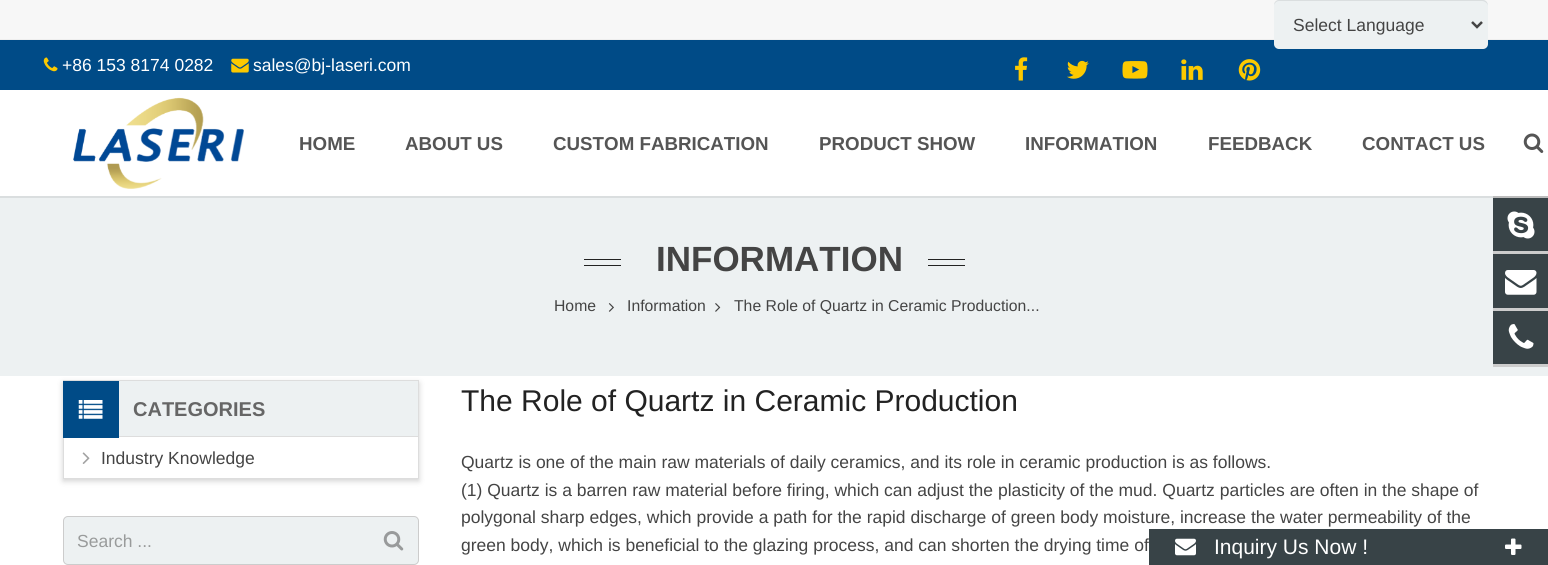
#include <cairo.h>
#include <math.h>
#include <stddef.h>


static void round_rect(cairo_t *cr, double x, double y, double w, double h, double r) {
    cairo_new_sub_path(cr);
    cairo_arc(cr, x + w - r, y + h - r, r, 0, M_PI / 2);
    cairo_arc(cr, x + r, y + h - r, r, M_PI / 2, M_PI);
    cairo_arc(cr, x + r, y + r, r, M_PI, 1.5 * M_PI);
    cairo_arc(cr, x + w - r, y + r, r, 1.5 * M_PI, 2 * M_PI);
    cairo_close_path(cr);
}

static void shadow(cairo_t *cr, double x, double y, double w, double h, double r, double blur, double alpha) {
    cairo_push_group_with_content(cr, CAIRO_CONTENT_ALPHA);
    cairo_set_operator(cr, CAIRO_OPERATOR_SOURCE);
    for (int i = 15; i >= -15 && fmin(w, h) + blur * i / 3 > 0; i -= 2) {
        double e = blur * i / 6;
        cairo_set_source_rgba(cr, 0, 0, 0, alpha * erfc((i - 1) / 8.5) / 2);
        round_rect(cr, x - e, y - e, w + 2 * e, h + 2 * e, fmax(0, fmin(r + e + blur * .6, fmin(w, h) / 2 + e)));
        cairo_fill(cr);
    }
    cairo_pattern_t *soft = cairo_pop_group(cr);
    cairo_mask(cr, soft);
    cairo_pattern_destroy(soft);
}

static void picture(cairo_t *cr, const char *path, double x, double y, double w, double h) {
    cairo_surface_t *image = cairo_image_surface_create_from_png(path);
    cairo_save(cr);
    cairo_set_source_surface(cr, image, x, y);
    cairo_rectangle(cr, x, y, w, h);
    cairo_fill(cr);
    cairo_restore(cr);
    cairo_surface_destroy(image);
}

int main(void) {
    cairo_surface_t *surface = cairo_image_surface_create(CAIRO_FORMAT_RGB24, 1548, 565);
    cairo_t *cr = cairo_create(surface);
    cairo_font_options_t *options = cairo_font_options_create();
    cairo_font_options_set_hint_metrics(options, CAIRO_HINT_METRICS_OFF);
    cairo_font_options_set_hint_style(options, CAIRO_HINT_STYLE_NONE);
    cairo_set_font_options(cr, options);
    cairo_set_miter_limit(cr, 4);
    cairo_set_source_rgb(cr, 1, 1, 1);
    cairo_paint(cr);
    cairo_set_source_rgb(cr, 0.965, 0.965, 0.965);
    cairo_rectangle(cr, 0, 0, 1548, 39);
    cairo_fill(cr);
    cairo_set_source_rgb(cr, 0.933, 0.933, 0.933);
    cairo_rectangle(cr, 0, 39, 1548, 1);
    cairo_fill(cr);
    cairo_set_source_rgb(cr, 0, 0.294, 0.529);
    cairo_rectangle(cr, 0, 40, 1548, 50);
    cairo_fill(cr);
    cairo_set_source_rgb(cr, 0.929, 0.945, 0.949);
    round_rect(cr, 1274, 0, 214, 49, 5);
    cairo_fill(cr);
    cairo_set_source_rgb(cr, 0.855, 0.871, 0.875);
    cairo_new_path(cr);
    cairo_move_to(cr, 1279, 1);
    cairo_line_to(cr, 1482, 1);
    cairo_curve_to(cr, 1485, 1, 1488, 4, 1488, 6);
    cairo_curve_to(cr, 1488, 3, 1486, 0, 1483, 0);
    cairo_line_to(cr, 1278, 0);
    cairo_curve_to(cr, 1275, 1, 1274, 3, 1274, 6);
    cairo_curve_to(cr, 1274, 4, 1276, 1, 1279, 1);
    cairo_close_path(cr);
    cairo_fill(cr);
    cairo_new_path(cr);
    cairo_move_to(cr, 1472, 22);
    cairo_line_to(cr, 1477, 27);
    cairo_line_to(cr, 1482, 22);
    cairo_set_source_rgb(cr, 0.267, 0.267, 0.267);
    cairo_set_line_width(cr, 2.5);
    cairo_stroke(cr);
    cairo_select_font_face(cr, "Liberation Sans", CAIRO_FONT_SLANT_NORMAL, CAIRO_FONT_WEIGHT_NORMAL);
    cairo_set_font_size(cr, 17.5);
    cairo_move_to(cr, 1293, 31);
    cairo_show_text(cr, "Select Language");
    picture(cr, "img1.png", 43, 57, 15, 15);
    cairo_set_source_rgb(cr, 1, 1, 1);
    cairo_move_to(cr, 62, 71);
    cairo_show_text(cr, "+86 153 8174 0282");
    picture(cr, "img2.png", 231, 58, 18, 15);
    cairo_move_to(cr, 253, 71);
    cairo_show_text(cr, "sales@bj-laseri.com");
    picture(cr, "img3.png", 1015, 57, 13, 24);
    picture(cr, "img4.png", 1067, 60, 22, 19);
    picture(cr, "img5.png", 1122, 61, 26, 18);
    picture(cr, "img6.png", 1181, 59, 22, 21);
    picture(cr, "img7.png", 1238, 59, 23, 22);
    cairo_save(cr);
    cairo_set_fill_rule(cr, CAIRO_FILL_RULE_EVEN_ODD);
    cairo_new_path(cr);
    cairo_move_to(cr, 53, 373);
    cairo_line_to(cr, 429, 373);
    cairo_line_to(cr, 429, 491);
    cairo_line_to(cr, 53, 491);
    cairo_close_path(cr);
    cairo_move_to(cr, 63, 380);
    cairo_line_to(cr, 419, 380);
    cairo_line_to(cr, 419, 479);
    cairo_line_to(cr, 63, 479);
    cairo_close_path(cr);
    cairo_clip(cr);
    cairo_set_source_rgb(cr, 0, 0, 0);
    shadow(cr, 63, 383, 356, 98, 0, 3, 0.18);
    cairo_restore(cr);
    cairo_set_source_rgb(cr, 0.929, 0.945, 0.949);
    cairo_rectangle(cr, 0, 196, 1548, 180);
    cairo_fill(cr);
    cairo_set_source_rgb(cr, 0.8, 0.8, 0.8);
    cairo_rectangle(cr, 1493, 196, 55, 2);
    cairo_fill(cr);
    cairo_set_source_rgba(cr, 0, 0, 0, 0.08);
    cairo_new_path(cr);
    cairo_move_to(cr, 0, 196);
    cairo_line_to(cr, 0, 198);
    cairo_line_to(cr, 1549, 198);
    cairo_line_to(cr, 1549, 91);
    cairo_line_to(cr, 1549, 196);
    cairo_close_path(cr);
    cairo_fill(cr);
    picture(cr, "img8.png", 73, 97, 171, 92);
    cairo_select_font_face(cr, "Liberation Sans", CAIRO_FONT_SLANT_NORMAL, CAIRO_FONT_WEIGHT_BOLD);
    cairo_set_font_size(cr, 18.75);
    cairo_set_source_rgb(cr, 0.333, 0.333, 0.333);
    cairo_move_to(cr, 299, 150);
    cairo_show_text(cr, "HOME");
    cairo_move_to(cr, 405, 150);
    cairo_show_text(cr, "ABOUT US");
    cairo_move_to(cr, 553, 150);
    cairo_show_text(cr, "CUSTOM FABRICATION");
    cairo_move_to(cr, 819, 150);
    cairo_show_text(cr, "PRODUCT SHOW");
    cairo_move_to(cr, 1025, 150);
    cairo_show_text(cr, "INFORMATION");
    cairo_move_to(cr, 1208, 150);
    cairo_show_text(cr, "FEEDBACK");
    cairo_move_to(cr, 1362, 150);
    cairo_show_text(cr, "CONTACT US");
    picture(cr, "img9.png", 1523, 133, 21, 20);
    cairo_set_source_rgb(cr, 0.133, 0.133, 0.133);
    cairo_rectangle(cr, 584, 259, 37, 1);
    cairo_fill(cr);
    cairo_rectangle(cr, 584, 265, 37, 1);
    cairo_fill(cr);
    cairo_set_font_size(cr, 35);
    cairo_set_source_rgb(cr, 0.267, 0.267, 0.267);
    cairo_move_to(cr, 656, 271);
    cairo_show_text(cr, "INFORMATION");
    cairo_set_source_rgb(cr, 0.133, 0.133, 0.133);
    cairo_rectangle(cr, 928, 259, 37, 1);
    cairo_fill(cr);
    cairo_rectangle(cr, 928, 265, 37, 1);
    cairo_fill(cr);
    cairo_select_font_face(cr, "Liberation Sans", CAIRO_FONT_SLANT_NORMAL, CAIRO_FONT_WEIGHT_NORMAL);
    cairo_set_font_size(cr, 15.75);
    cairo_set_source_rgb(cr, 0.267, 0.267, 0.267);
    cairo_move_to(cr, 554, 311);
    cairo_show_text(cr, "Home");
    picture(cr, "img10.png", 608, 303, 6, 9);
    cairo_move_to(cr, 627, 311);
    cairo_show_text(cr, "Information");
    picture(cr, "img11.png", 715, 303, 6, 9);
    cairo_move_to(cr, 734, 311);
    cairo_show_text(cr, "The Role of Quartz in Ceramic Production...");
    cairo_set_source_rgb(cr, 0.929, 0.945, 0.949);
    cairo_rectangle(cr, 119, 381, 299, 55);
    cairo_fill(cr);
    cairo_set_source_rgb(cr, 0.867, 0.867, 0.867);
    cairo_rectangle(cr, 63, 380, 356, 1);
    cairo_fill(cr);
    cairo_rectangle(cr, 418, 380, 1, 56);
    cairo_fill(cr);
    cairo_rectangle(cr, 63.5, 436.5, 355, 42);
    cairo_set_line_width(cr, 1);
    cairo_stroke(cr);
    cairo_set_source_rgb(cr, 0, 0.294, 0.529);
    cairo_rectangle(cr, 63, 381, 56, 57);
    cairo_fill(cr);
    picture(cr, "img12.png", 78, 400, 25, 19);
    cairo_select_font_face(cr, "Liberation Sans", CAIRO_FONT_SLANT_NORMAL, CAIRO_FONT_WEIGHT_BOLD);
    cairo_set_font_size(cr, 20);
    cairo_set_source_rgb(cr, 0.4, 0.4, 0.4);
    cairo_move_to(cr, 133, 416);
    cairo_show_text(cr, "CATEGORIES");
    picture(cr, "img13.png", 82, 452, 8, 12);
    cairo_select_font_face(cr, "Liberation Sans", CAIRO_FONT_SLANT_NORMAL, CAIRO_FONT_WEIGHT_NORMAL);
    cairo_set_font_size(cr, 17.5);
    cairo_set_source_rgb(cr, 0.267, 0.267, 0.267);
    cairo_move_to(cr, 101, 464);
    cairo_show_text(cr, "Industry Knowledge");
    cairo_set_source_rgb(cr, 0.929, 0.945, 0.949);
    round_rect(cr, 63.5, 516.5, 355, 48, 4.5);
    cairo_fill_preserve(cr);
    cairo_set_source_rgb(cr, 0.8, 0.8, 0.8);
    cairo_stroke(cr);
    cairo_set_source_rgb(cr, 0.6, 0.608, 0.608);
    cairo_move_to(cr, 77, 547);
    cairo_show_text(cr, "Search ...");
    picture(cr, "img14.png", 383, 531, 21, 20);
    cairo_set_font_size(cr, 30);
    cairo_set_source_rgb(cr, 0.133, 0.133, 0.133);
    cairo_move_to(cr, 461, 411);
    cairo_show_text(cr, "The Role of Quartz in Ceramic Production");
    cairo_set_font_size(cr, 17.5);
    cairo_set_source_rgb(cr, 0.267, 0.267, 0.267);
    cairo_move_to(cr, 461, 468);
    cairo_show_text(cr, "Quartz is one of the main raw materials of daily ceramics, and its role in ceramic production is as follows.");
    cairo_move_to(cr, 461, 496);
    cairo_show_text(cr, "(1) Quartz is a barren raw material before firing, which can adjust the plasticity of the mud. Quartz particles are often in the shape of");
    cairo_move_to(cr, 461, 523);
    cairo_show_text(cr, "polygonal sharp edges, which provide a path for the rapid discharge of green body moisture, increase the water permeability of the");
    cairo_move_to(cr, 461, 551);
    cairo_show_text(cr, "green body, which is beneficial to the glazing process, and can shorten the drying time of");
    cairo_set_source_rgb(cr, 0.22, 0.263, 0.278);
    cairo_rectangle(cr, 1493, 198, 55, 166);
    cairo_fill(cr);
    cairo_set_source_rgb(cr, 0.8, 0.8, 0.8);
    cairo_rectangle(cr, 1493, 251, 55, 3);
    cairo_fill(cr);
    picture(cr, "img15.png", 1507, 211, 28, 28);
    cairo_rectangle(cr, 1493, 308, 55, 3);
    cairo_fill(cr);
    picture(cr, "img16.png", 1505, 270, 32, 25);
    cairo_rectangle(cr, 1493, 364, 55, 3);
    cairo_fill(cr);
    picture(cr, "img17.png", 1508, 324, 26, 25);
    cairo_set_source_rgb(cr, 0.22, 0.263, 0.278);
    cairo_rectangle(cr, 1149, 529, 399, 36);
    cairo_fill(cr);
    picture(cr, "img18.png", 1175, 538, 21, 18);
    cairo_set_font_size(cr, 21);
    cairo_set_source_rgb(cr, 1, 1, 1);
    cairo_move_to(cr, 1214, 554);
    cairo_show_text(cr, "Inquiry Us Now !");
    picture(cr, "img19.png", 1505, 538, 17, 17);
    cairo_surface_write_to_png(surface, "page.png");
    cairo_font_options_destroy(options);
    cairo_destroy(cr);
    cairo_surface_destroy(surface);
    return 0;
}
